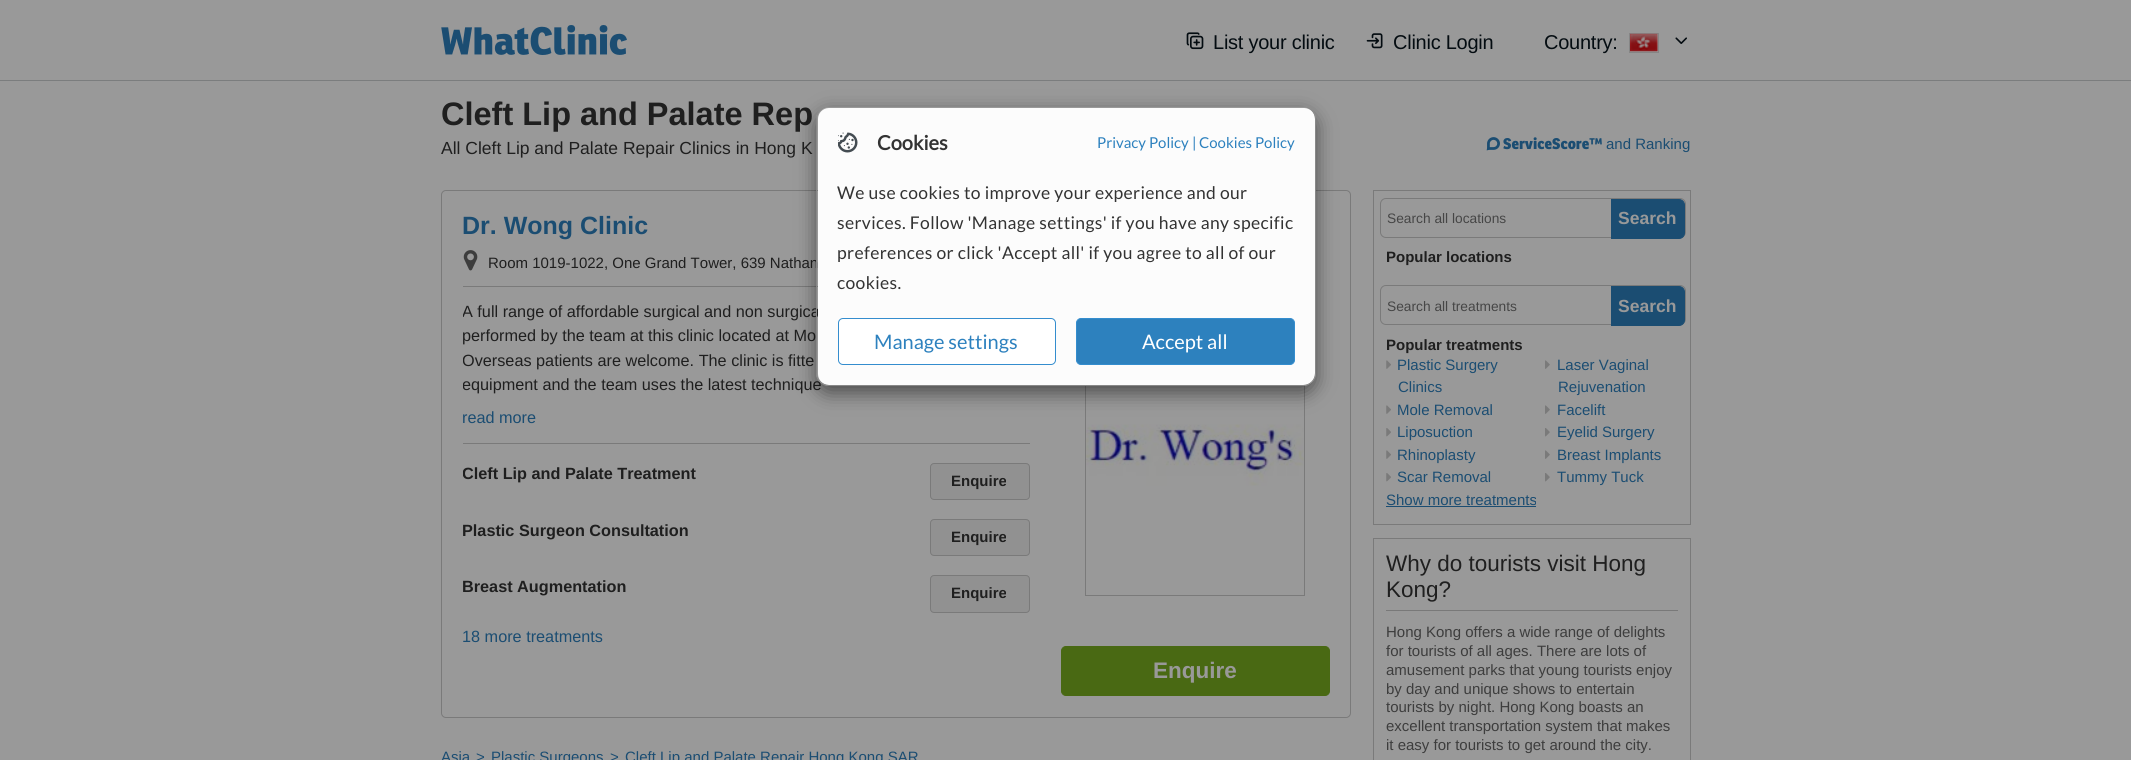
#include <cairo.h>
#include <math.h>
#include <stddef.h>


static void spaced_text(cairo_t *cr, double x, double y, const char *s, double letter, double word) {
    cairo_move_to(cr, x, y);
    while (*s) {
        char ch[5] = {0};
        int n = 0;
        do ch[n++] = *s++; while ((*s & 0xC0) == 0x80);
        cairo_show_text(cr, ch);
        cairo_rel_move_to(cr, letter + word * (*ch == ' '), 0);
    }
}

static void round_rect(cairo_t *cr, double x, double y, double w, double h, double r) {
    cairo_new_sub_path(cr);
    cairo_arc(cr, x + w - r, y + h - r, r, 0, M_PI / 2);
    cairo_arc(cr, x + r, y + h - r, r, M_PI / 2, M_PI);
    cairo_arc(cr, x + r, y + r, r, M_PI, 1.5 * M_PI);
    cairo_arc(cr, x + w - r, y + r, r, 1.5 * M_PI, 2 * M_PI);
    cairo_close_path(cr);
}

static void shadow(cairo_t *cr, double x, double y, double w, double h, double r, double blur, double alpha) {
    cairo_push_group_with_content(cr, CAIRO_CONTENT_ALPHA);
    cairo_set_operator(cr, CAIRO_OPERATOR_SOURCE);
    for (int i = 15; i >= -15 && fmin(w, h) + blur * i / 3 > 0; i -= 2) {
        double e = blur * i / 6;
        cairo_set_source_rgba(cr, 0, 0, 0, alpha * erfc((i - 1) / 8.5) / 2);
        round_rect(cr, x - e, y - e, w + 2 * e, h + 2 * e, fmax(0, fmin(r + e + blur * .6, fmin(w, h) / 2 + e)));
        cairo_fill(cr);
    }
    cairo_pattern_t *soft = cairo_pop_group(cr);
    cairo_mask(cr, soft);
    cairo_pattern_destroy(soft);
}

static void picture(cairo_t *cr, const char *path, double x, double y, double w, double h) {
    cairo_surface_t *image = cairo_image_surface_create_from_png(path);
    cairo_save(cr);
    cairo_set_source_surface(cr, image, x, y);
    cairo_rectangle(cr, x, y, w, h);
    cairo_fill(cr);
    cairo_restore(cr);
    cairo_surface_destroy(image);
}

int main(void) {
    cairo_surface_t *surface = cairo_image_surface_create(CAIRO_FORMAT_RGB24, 2131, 760);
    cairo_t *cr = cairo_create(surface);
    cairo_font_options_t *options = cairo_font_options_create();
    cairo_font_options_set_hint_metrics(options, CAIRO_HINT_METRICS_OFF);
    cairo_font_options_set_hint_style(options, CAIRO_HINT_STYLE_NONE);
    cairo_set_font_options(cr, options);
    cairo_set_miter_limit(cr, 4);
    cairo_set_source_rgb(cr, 0.6, 0.6, 0.6);
    cairo_paint(cr);
    cairo_set_source_rgb(cr, 0.482, 0.49, 0.494);
    cairo_rectangle(cr, 0, 80, 2131, 1);
    cairo_fill(cr);
    picture(cr, "img1.png", 441, 25, 186, 30);
    picture(cr, "img2.png", 1186, 32, 18, 18);
    cairo_select_font_face(cr, "Liberation Sans", CAIRO_FONT_SLANT_NORMAL, CAIRO_FONT_WEIGHT_NORMAL);
    cairo_set_font_size(cr, 20);
    cairo_set_source_rgb(cr, 0.016, 0.047, 0.067);
    spaced_text(cr, 1213, 49, "List your clinic", -0.25, 0);
    picture(cr, "img3.png", 1366, 33, 17, 16);
    spaced_text(cr, 1393, 49, "Clinic Login", -0.25, 0);
    cairo_rectangle(cr, 1629.5, 33.5, 29, 19);
    cairo_set_source_rgb(cr, 0.522, 0.522, 0.522);
    cairo_set_line_width(cr, 1);
    cairo_stroke(cr);
    cairo_set_source_rgb(cr, 0.016, 0.047, 0.067);
    spaced_text(cr, 1544, 49, "Country:", -0.25, 0);
    picture(cr, "img4.png", 1630, 33, 28, 19);
    picture(cr, "img5.png", 1675, 37, 12, 7);
    cairo_select_font_face(cr, "Liberation Sans", CAIRO_FONT_SLANT_NORMAL, CAIRO_FONT_WEIGHT_BOLD);
    cairo_set_font_size(cr, 32.5);
    cairo_set_source_rgb(cr, 0.122, 0.122, 0.122);
    cairo_move_to(cr, 441, 125);
    cairo_show_text(cr, "Cleft Lip and Palate Rep");
    cairo_select_font_face(cr, "Liberation Sans", CAIRO_FONT_SLANT_NORMAL, CAIRO_FONT_WEIGHT_NORMAL);
    cairo_set_font_size(cr, 17.5);
    cairo_move_to(cr, 441, 154);
    cairo_show_text(cr, "All Cleft Lip and Palate Repair Clinics in Hong K");
    round_rect(cr, 441.5, 190.5, 909, 527, 4.5);
    cairo_set_source_rgb(cr, 0.478, 0.478, 0.478);
    cairo_stroke(cr);
    cairo_rectangle(cr, 463, 286, 355, 1);
    cairo_fill(cr);
    cairo_select_font_face(cr, "Liberation Sans", CAIRO_FONT_SLANT_NORMAL, CAIRO_FONT_WEIGHT_BOLD);
    cairo_set_font_size(cr, 25);
    cairo_set_source_rgb(cr, 0.106, 0.302, 0.447);
    cairo_move_to(cr, 462, 234);
    cairo_show_text(cr, "Dr. Wong Clinic");
    picture(cr, "img6.png", 463, 250, 15, 21);
    cairo_select_font_face(cr, "Liberation Sans", CAIRO_FONT_SLANT_NORMAL, CAIRO_FONT_WEIGHT_NORMAL);
    cairo_set_font_size(cr, 15);
    cairo_set_source_rgb(cr, 0.122, 0.122, 0.122);
    cairo_move_to(cr, 488, 268);
    cairo_show_text(cr, "Room 1019-1022, One Grand Tower, 639 Nathan");
    cairo_set_source_rgb(cr, 0.478, 0.478, 0.478);
    cairo_rectangle(cr, 463, 443, 567, 1);
    cairo_fill(cr);
    cairo_save(cr);
    cairo_rectangle(cr, 463, 300, 567, 99);
    cairo_clip(cr);
    cairo_set_font_size(cr, 16.25);
    cairo_set_source_rgb(cr, 0.122, 0.122, 0.122);
    cairo_move_to(cr, 462, 317);
    cairo_show_text(cr, "A full range of affordable surgical and non surgica");
    cairo_restore(cr);
    cairo_set_font_size(cr, 16.25);
    cairo_set_source_rgb(cr, 0.122, 0.122, 0.122);
    cairo_move_to(cr, 462, 341);
    cairo_show_text(cr, "performed by the team at this clinic located at Mo");
    cairo_save(cr);
    cairo_rectangle(cr, 463, 300, 567, 99);
    cairo_clip(cr);
    cairo_move_to(cr, 462, 366);
    cairo_show_text(cr, "Overseas patients are welcome. The clinic is fitte");
    cairo_move_to(cr, 462, 390);
    cairo_show_text(cr, "equipment and the team uses the latest technique");
    cairo_restore(cr);
    cairo_set_source_rgb(cr, 0.106, 0.302, 0.447);
    cairo_move_to(cr, 462, 423);
    cairo_show_text(cr, "read more");
    cairo_save(cr);
    cairo_rectangle(cr, 463, 463, 275, 23);
    cairo_clip(cr);
    cairo_select_font_face(cr, "Liberation Sans", CAIRO_FONT_SLANT_NORMAL, CAIRO_FONT_WEIGHT_BOLD);
    cairo_set_source_rgb(cr, 0.122, 0.122, 0.122);
    cairo_move_to(cr, 462, 479);
    cairo_show_text(cr, "Cleft Lip and Palate Treatment");
    cairo_restore(cr);
    cairo_set_source_rgb(cr, 0.569, 0.569, 0.569);
    round_rect(cr, 930.5, 463.5, 99, 36, 3.5);
    cairo_fill_preserve(cr);
    cairo_set_source_rgb(cr, 0.478, 0.478, 0.478);
    cairo_stroke(cr);
    cairo_select_font_face(cr, "Liberation Sans", CAIRO_FONT_SLANT_NORMAL, CAIRO_FONT_WEIGHT_BOLD);
    cairo_set_font_size(cr, 15);
    cairo_set_source_rgb(cr, 0.122, 0.122, 0.122);
    cairo_move_to(cr, 951, 486);
    cairo_show_text(cr, "Enquire");
    cairo_set_font_size(cr, 16.25);
    cairo_move_to(cr, 462, 536);
    cairo_show_text(cr, "Plastic Surgeon Consultation");
    cairo_set_source_rgb(cr, 0.569, 0.569, 0.569);
    round_rect(cr, 930.5, 519.5, 99, 36, 3.5);
    cairo_fill_preserve(cr);
    cairo_set_source_rgb(cr, 0.478, 0.478, 0.478);
    cairo_stroke(cr);
    cairo_set_font_size(cr, 15);
    cairo_set_source_rgb(cr, 0.122, 0.122, 0.122);
    cairo_move_to(cr, 951, 542);
    cairo_show_text(cr, "Enquire");
    cairo_set_font_size(cr, 16.25);
    cairo_move_to(cr, 462, 592);
    cairo_show_text(cr, "Breast Augmentation");
    cairo_set_source_rgb(cr, 0.569, 0.569, 0.569);
    round_rect(cr, 930.5, 575.5, 99, 37, 3.5);
    cairo_fill_preserve(cr);
    cairo_set_source_rgb(cr, 0.478, 0.478, 0.478);
    cairo_stroke(cr);
    cairo_set_font_size(cr, 15);
    cairo_set_source_rgb(cr, 0.122, 0.122, 0.122);
    cairo_move_to(cr, 951, 598);
    cairo_show_text(cr, "Enquire");
    cairo_select_font_face(cr, "Liberation Sans", CAIRO_FONT_SLANT_NORMAL, CAIRO_FONT_WEIGHT_NORMAL);
    cairo_set_font_size(cr, 16.25);
    cairo_set_source_rgb(cr, 0.106, 0.302, 0.447);
    cairo_move_to(cr, 462, 642);
    cairo_show_text(cr, "18 more treatments");
    cairo_rectangle(cr, 1085.5, 304.5, 219, 291);
    cairo_set_source_rgb(cr, 0.478, 0.478, 0.478);
    cairo_stroke(cr);
    picture(cr, "img7.png", 1086, 424, 218, 62);
    cairo_set_source_rgb(cr, 0.286, 0.412, 0.075);
    round_rect(cr, 1061.5, 646.5, 268, 49, 4.5);
    cairo_fill_preserve(cr);
    cairo_stroke(cr);
    cairo_select_font_face(cr, "Liberation Sans", CAIRO_FONT_SLANT_NORMAL, CAIRO_FONT_WEIGHT_BOLD);
    cairo_set_font_size(cr, 22.5);
    cairo_set_source_rgb(cr, 0.6, 0.6, 0.6);
    cairo_move_to(cr, 1153, 678);
    cairo_show_text(cr, "Enquire");
    cairo_select_font_face(cr, "Liberation Sans", CAIRO_FONT_SLANT_NORMAL, CAIRO_FONT_WEIGHT_NORMAL);
    cairo_set_font_size(cr, 15);
    cairo_set_source_rgb(cr, 0.106, 0.302, 0.447);
    cairo_move_to(cr, 441, 762);
    cairo_show_text(cr, "Asia");
    cairo_move_to(cr, 476, 762);
    cairo_show_text(cr, ">");
    cairo_move_to(cr, 491, 762);
    cairo_show_text(cr, "Plastic Surgeons");
    cairo_move_to(cr, 610, 762);
    cairo_show_text(cr, ">");
    cairo_move_to(cr, 625, 762);
    cairo_show_text(cr, "Cleft Lip and Palate Repair Hong Kong SAR");
    picture(cr, "img8.png", 1486, 137, 14, 14);
    cairo_select_font_face(cr, "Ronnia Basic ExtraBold", CAIRO_FONT_SLANT_NORMAL, CAIRO_FONT_WEIGHT_NORMAL);
    cairo_move_to(cr, 1503, 149);
    cairo_show_text(cr, "ServiceScore™");
    cairo_select_font_face(cr, "Liberation Sans", CAIRO_FONT_SLANT_NORMAL, CAIRO_FONT_WEIGHT_NORMAL);
    cairo_move_to(cr, 1606, 149);
    cairo_show_text(cr, "and Ranking");
    cairo_rectangle(cr, 1373.5, 190.5, 317, 334);
    cairo_set_source_rgb(cr, 0.478, 0.478, 0.478);
    cairo_stroke(cr);
    round_rect(cr, 1380.5, 198.5, 305, 39, 5.5);
    cairo_stroke(cr);
    cairo_set_font_size(cr, 13.75);
    cairo_set_source_rgb(cr, 0.275, 0.275, 0.275);
    cairo_move_to(cr, 1387, 223);
    cairo_show_text(cr, "Search all locations");
    cairo_set_source_rgb(cr, 0.106, 0.302, 0.447);
    cairo_new_path(cr);
    cairo_move_to(cr, 1611.5, 199.5);
    cairo_line_to(cr, 1679, 199.5);
    cairo_curve_to(cr, 1682, 199.5, 1684.5, 202, 1684.5, 205);
    cairo_line_to(cr, 1684.5, 233);
    cairo_curve_to(cr, 1684.5, 236, 1682, 238.5, 1679, 238.5);
    cairo_line_to(cr, 1611.5, 238.5);
    cairo_close_path(cr);
    cairo_fill_preserve(cr);
    cairo_stroke(cr);
    cairo_select_font_face(cr, "Liberation Sans", CAIRO_FONT_SLANT_NORMAL, CAIRO_FONT_WEIGHT_BOLD);
    cairo_set_font_size(cr, 17.5);
    cairo_set_source_rgb(cr, 0.6, 0.6, 0.6);
    cairo_move_to(cr, 1618, 224);
    cairo_show_text(cr, "Search");
    cairo_set_font_size(cr, 15);
    cairo_set_source_rgb(cr, 0.122, 0.122, 0.122);
    cairo_move_to(cr, 1386, 262);
    cairo_show_text(cr, "Popular locations");
    round_rect(cr, 1380.5, 285.5, 305, 39, 5.5);
    cairo_set_source_rgb(cr, 0.478, 0.478, 0.478);
    cairo_stroke(cr);
    cairo_select_font_face(cr, "Liberation Sans", CAIRO_FONT_SLANT_NORMAL, CAIRO_FONT_WEIGHT_NORMAL);
    cairo_set_font_size(cr, 13.75);
    cairo_set_source_rgb(cr, 0.275, 0.275, 0.275);
    cairo_move_to(cr, 1387, 311);
    cairo_show_text(cr, "Search all treatments");
    cairo_set_source_rgb(cr, 0.106, 0.302, 0.447);
    cairo_new_path(cr);
    cairo_move_to(cr, 1611.5, 286.5);
    cairo_line_to(cr, 1679, 286.5);
    cairo_curve_to(cr, 1682, 286.5, 1684.5, 289, 1684.5, 292);
    cairo_line_to(cr, 1684.5, 320);
    cairo_curve_to(cr, 1684.5, 323, 1682, 325.5, 1679, 325.5);
    cairo_line_to(cr, 1611.5, 325.5);
    cairo_close_path(cr);
    cairo_fill_preserve(cr);
    cairo_stroke(cr);
    cairo_select_font_face(cr, "Liberation Sans", CAIRO_FONT_SLANT_NORMAL, CAIRO_FONT_WEIGHT_BOLD);
    cairo_set_font_size(cr, 17.5);
    cairo_set_source_rgb(cr, 0.6, 0.6, 0.6);
    cairo_move_to(cr, 1618, 312);
    cairo_show_text(cr, "Search");
    cairo_set_font_size(cr, 15);
    cairo_set_source_rgb(cr, 0.122, 0.122, 0.122);
    cairo_move_to(cr, 1386, 350);
    cairo_show_text(cr, "Popular treatments");
    picture(cr, "img9.png", 1386, 360, 5, 9);
    cairo_select_font_face(cr, "Liberation Sans", CAIRO_FONT_SLANT_NORMAL, CAIRO_FONT_WEIGHT_NORMAL);
    cairo_set_source_rgb(cr, 0.106, 0.302, 0.447);
    cairo_move_to(cr, 1397, 370);
    cairo_show_text(cr, "Plastic Surgery");
    cairo_move_to(cr, 1398, 392);
    cairo_show_text(cr, "Clinics");
    picture(cr, "img10.png", 1545, 360, 5, 9);
    cairo_move_to(cr, 1557, 370);
    cairo_show_text(cr, "Laser Vaginal");
    cairo_move_to(cr, 1558, 392);
    cairo_show_text(cr, "Rejuvenation");
    picture(cr, "img9.png", 1386, 405, 5, 9);
    cairo_move_to(cr, 1397, 415);
    cairo_show_text(cr, "Mole Removal");
    picture(cr, "img10.png", 1545, 405, 5, 9);
    cairo_move_to(cr, 1557, 415);
    cairo_show_text(cr, "Facelift");
    picture(cr, "img11.png", 1386, 428, 5, 9);
    cairo_move_to(cr, 1397, 437);
    cairo_show_text(cr, "Liposuction");
    picture(cr, "img12.png", 1545, 428, 5, 9);
    cairo_move_to(cr, 1557, 437);
    cairo_show_text(cr, "Eyelid Surgery");
    picture(cr, "img9.png", 1386, 450, 5, 9);
    cairo_move_to(cr, 1397, 460);
    cairo_show_text(cr, "Rhinoplasty");
    picture(cr, "img10.png", 1545, 450, 5, 9);
    cairo_move_to(cr, 1557, 460);
    cairo_show_text(cr, "Breast Implants");
    picture(cr, "img11.png", 1386, 473, 5, 9);
    cairo_move_to(cr, 1397, 482);
    cairo_show_text(cr, "Scar Removal");
    picture(cr, "img12.png", 1545, 473, 5, 9);
    cairo_move_to(cr, 1557, 482);
    cairo_show_text(cr, "Tummy Tuck");
    cairo_move_to(cr, 1386, 505);
    cairo_show_text(cr, "Show more treatments");
    cairo_rectangle(cr, 1386, 506, 150, 1);
    cairo_fill(cr);
    cairo_rectangle(cr, 1373.5, 538.5, 317, 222);
    cairo_set_source_rgb(cr, 0.478, 0.478, 0.478);
    cairo_stroke(cr);
    cairo_set_source_rgb(cr, 0.475, 0.475, 0.475);
    cairo_rectangle(cr, 1386, 610, 292, 1);
    cairo_fill(cr);
    cairo_set_font_size(cr, 22.5);
    cairo_set_source_rgb(cr, 0.122, 0.122, 0.122);
    cairo_move_to(cr, 1386, 571);
    cairo_show_text(cr, "Why do tourists visit Hong");
    cairo_move_to(cr, 1386, 597);
    cairo_show_text(cr, "Kong?");
    cairo_set_font_size(cr, 15);
    cairo_set_source_rgb(cr, 0.239, 0.239, 0.239);
    cairo_move_to(cr, 1386, 637);
    cairo_show_text(cr, "Hong Kong offers a wide range of delights");
    cairo_move_to(cr, 1386, 656);
    cairo_show_text(cr, "for tourists of all ages. There are lots of");
    cairo_move_to(cr, 1386, 675);
    cairo_show_text(cr, "amusement parks that young tourists enjoy");
    cairo_move_to(cr, 1386, 694);
    cairo_show_text(cr, "by day and unique shows to entertain");
    cairo_move_to(cr, 1386, 712);
    cairo_show_text(cr, "tourists by night. Hong Kong boasts an");
    cairo_move_to(cr, 1386, 731);
    cairo_show_text(cr, "excellent transportation system that makes");
    cairo_move_to(cr, 1386, 750);
    cairo_show_text(cr, "it easy for tourists to get around the city.");
    cairo_save(cr);
    cairo_set_fill_rule(cr, CAIRO_FILL_RULE_EVEN_ODD);
    cairo_new_path(cr);
    cairo_move_to(cr, 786, 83);
    cairo_line_to(cr, 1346, 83);
    cairo_line_to(cr, 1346, 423);
    cairo_line_to(cr, 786, 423);
    cairo_close_path(cr);
    cairo_move_to(cr, 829, 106);
    cairo_line_to(cr, 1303, 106);
    cairo_curve_to(cr, 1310, 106, 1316, 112, 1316, 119);
    cairo_line_to(cr, 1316, 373);
    cairo_curve_to(cr, 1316, 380, 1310, 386, 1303, 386);
    cairo_line_to(cr, 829, 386);
    cairo_curve_to(cr, 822, 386, 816, 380, 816, 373);
    cairo_line_to(cr, 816, 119);
    cairo_curve_to(cr, 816, 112, 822, 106, 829, 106);
    cairo_close_path(cr);
    cairo_clip(cr);
    cairo_set_source_rgb(cr, 0, 0, 0);
    shadow(cr, 816, 113, 500, 280, 13, 9.5, 0.5);
    cairo_restore(cr);
    cairo_set_source_rgb(cr, 0.988, 0.988, 0.988);
    round_rect(cr, 818, 108, 497, 277, 11);
    cairo_fill(cr);
    round_rect(cr, 816.5, 106.5, 499, 279, 12.5);
    cairo_set_source_rgb(cr, 0.533, 0.533, 0.533);
    cairo_stroke(cr);
    picture(cr, "img13.png", 838, 132, 20, 21);
    cairo_select_font_face(cr, "Lato", CAIRO_FONT_SLANT_NORMAL, CAIRO_FONT_WEIGHT_BOLD);
    cairo_set_font_size(cr, 20);
    cairo_set_source_rgb(cr, 0.2, 0.2, 0.2);
    cairo_move_to(cr, 877, 150);
    cairo_show_text(cr, "Cookies");
    cairo_select_font_face(cr, "Lato", CAIRO_FONT_SLANT_NORMAL, CAIRO_FONT_WEIGHT_NORMAL);
    cairo_set_font_size(cr, 15);
    cairo_set_source_rgb(cr, 0.176, 0.506, 0.745);
    cairo_move_to(cr, 1097, 148);
    cairo_show_text(cr, "Privacy Policy");
    cairo_move_to(cr, 1192, 148);
    cairo_show_text(cr, "|");
    cairo_move_to(cr, 1199, 148);
    cairo_show_text(cr, "Cookies Policy");
    cairo_set_font_size(cr, 17.5);
    cairo_set_source_rgb(cr, 0.2, 0.2, 0.2);
    spaced_text(cr, 837, 199, "We use cookies to improve your experience and our", 0.35, 0);
    spaced_text(cr, 837, 229, "services. Follow 'Manage settings' if you have any specific", 0.35, 0);
    spaced_text(cr, 837, 259, "preferences or click 'Accept all' if you agree to all of our", 0.35, 0);
    spaced_text(cr, 837, 289, "cookies.", 0.35, 0);
    cairo_set_source_rgb(cr, 1, 1, 1);
    round_rect(cr, 838.5, 318.5, 217, 46, 4.5);
    cairo_fill_preserve(cr);
    cairo_set_source_rgb(cr, 0.204, 0.553, 0.808);
    cairo_stroke(cr);
    cairo_set_font_size(cr, 20);
    cairo_set_source_rgb(cr, 0.176, 0.506, 0.745);
    cairo_move_to(cr, 874, 349);
    cairo_show_text(cr, "Manage settings");
    round_rect(cr, 1076.5, 318.5, 218, 46, 4.5);
    cairo_fill_preserve(cr);
    cairo_set_source_rgb(cr, 0.204, 0.553, 0.808);
    cairo_stroke(cr);
    cairo_set_source_rgb(cr, 1, 1, 1);
    cairo_move_to(cr, 1142, 349);
    cairo_show_text(cr, "Accept all");
    cairo_surface_write_to_png(surface, "page.png");
    cairo_font_options_destroy(options);
    cairo_destroy(cr);
    cairo_surface_destroy(surface);
    return 0;
}
